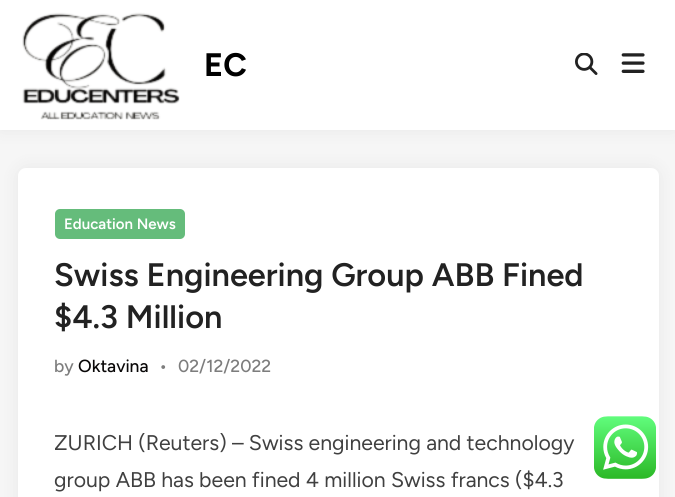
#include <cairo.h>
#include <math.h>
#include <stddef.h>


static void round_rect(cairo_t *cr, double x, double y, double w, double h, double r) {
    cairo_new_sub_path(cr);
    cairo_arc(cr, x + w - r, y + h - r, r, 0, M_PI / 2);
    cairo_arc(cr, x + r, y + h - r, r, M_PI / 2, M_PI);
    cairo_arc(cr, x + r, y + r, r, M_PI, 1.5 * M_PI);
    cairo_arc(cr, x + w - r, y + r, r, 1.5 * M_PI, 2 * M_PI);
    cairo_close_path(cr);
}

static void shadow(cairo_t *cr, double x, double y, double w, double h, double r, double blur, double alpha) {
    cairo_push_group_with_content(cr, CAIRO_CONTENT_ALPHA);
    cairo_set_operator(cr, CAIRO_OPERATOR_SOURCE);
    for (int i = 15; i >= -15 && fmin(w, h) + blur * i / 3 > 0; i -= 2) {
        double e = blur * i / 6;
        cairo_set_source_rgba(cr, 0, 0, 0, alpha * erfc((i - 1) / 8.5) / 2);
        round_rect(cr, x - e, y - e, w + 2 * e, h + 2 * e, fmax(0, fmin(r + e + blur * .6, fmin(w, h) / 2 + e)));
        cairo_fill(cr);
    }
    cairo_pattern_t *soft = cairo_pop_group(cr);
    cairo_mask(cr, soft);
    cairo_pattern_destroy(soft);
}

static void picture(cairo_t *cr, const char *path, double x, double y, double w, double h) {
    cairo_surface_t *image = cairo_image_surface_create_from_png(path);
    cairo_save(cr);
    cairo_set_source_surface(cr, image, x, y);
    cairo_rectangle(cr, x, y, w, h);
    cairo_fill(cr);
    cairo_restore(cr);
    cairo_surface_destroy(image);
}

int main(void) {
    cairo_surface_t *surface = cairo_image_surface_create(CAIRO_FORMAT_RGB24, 675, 497);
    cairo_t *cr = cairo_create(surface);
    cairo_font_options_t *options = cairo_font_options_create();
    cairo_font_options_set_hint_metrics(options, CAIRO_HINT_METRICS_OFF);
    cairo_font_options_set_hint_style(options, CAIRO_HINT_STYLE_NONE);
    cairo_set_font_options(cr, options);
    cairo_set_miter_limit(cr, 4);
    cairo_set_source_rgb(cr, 0.961, 0.961, 0.961);
    cairo_paint(cr);
    cairo_set_source_rgb(cr, 0, 0, 0);
    shadow(cr, 0, 0, 675, 130, 0, 9.5, 0.06);
    cairo_set_source_rgb(cr, 1, 1, 1);
    cairo_rectangle(cr, 0, 0, 675, 130);
    cairo_fill(cr);
    picture(cr, "img1.png", 22, 12, 158, 108);
    cairo_select_font_face(cr, "Figtree", CAIRO_FONT_SLANT_NORMAL, CAIRO_FONT_WEIGHT_BOLD);
    cairo_set_font_size(cr, 32.5);
    cairo_set_source_rgb(cr, 0, 0, 0);
    cairo_move_to(cr, 204, 76);
    cairo_show_text(cr, "EC");
    picture(cr, "img2.png", 575, 53, 23, 22);
    picture(cr, "img3.png", 621, 53, 24, 20);
    cairo_set_source_rgb(cr, 0, 0, 0);
    shadow(cr, 18, 168, 641, 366, 8, 9.5, 0.06);
    cairo_set_source_rgb(cr, 1, 1, 1);
    round_rect(cr, 18, 168, 641, 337, 8);
    cairo_fill(cr);
    cairo_set_source_rgb(cr, 0.396, 0.737, 0.482);
    round_rect(cr, 55, 209, 130, 30, 5);
    cairo_fill(cr);
    cairo_select_font_face(cr, "Figtree SemiBold", CAIRO_FONT_SLANT_NORMAL, CAIRO_FONT_WEIGHT_NORMAL);
    cairo_set_font_size(cr, 15);
    cairo_set_source_rgb(cr, 1, 1, 1);
    cairo_move_to(cr, 64, 229);
    cairo_show_text(cr, "Education News");
    cairo_set_font_size(cr, 32.5);
    cairo_set_source_rgb(cr, 0.133, 0.133, 0.133);
    cairo_move_to(cr, 54, 286);
    cairo_show_text(cr, "Swiss Engineering Group ABB Fined");
    cairo_move_to(cr, 54, 328);
    cairo_show_text(cr, "$4.3 Million");
    cairo_select_font_face(cr, "Figtree Medium", CAIRO_FONT_SLANT_NORMAL, CAIRO_FONT_WEIGHT_NORMAL);
    cairo_set_font_size(cr, 17.5);
    cairo_set_source_rgb(cr, 0.49, 0.49, 0.49);
    cairo_move_to(cr, 54, 372);
    cairo_show_text(cr, "by");
    cairo_set_source_rgb(cr, 0.039, 0.031, 0.031);
    cairo_move_to(cr, 78, 372);
    cairo_show_text(cr, "Oktavina");
    cairo_set_source_rgb(cr, 0.49, 0.49, 0.49);
    cairo_move_to(cr, 159, 372);
    cairo_show_text(cr, "•");
    cairo_move_to(cr, 178, 372);
    cairo_show_text(cr, "02/12/2022");
    cairo_select_font_face(cr, "Figtree", CAIRO_FONT_SLANT_NORMAL, CAIRO_FONT_WEIGHT_NORMAL);
    cairo_set_font_size(cr, 21.25);
    cairo_set_source_rgb(cr, 0.251, 0.251, 0.251);
    cairo_move_to(cr, 54, 450);
    cairo_show_text(cr, "ZURICH (Reuters) – Swiss engineering and technology");
    cairo_move_to(cr, 54, 487);
    cairo_show_text(cr, "group ABB has been fined 4 million Swiss francs ($4.3");
    picture(cr, "img4.png", 594, 416, 62, 63);
    cairo_surface_write_to_png(surface, "page.png");
    cairo_font_options_destroy(options);
    cairo_destroy(cr);
    cairo_surface_destroy(surface);
    return 0;
}
